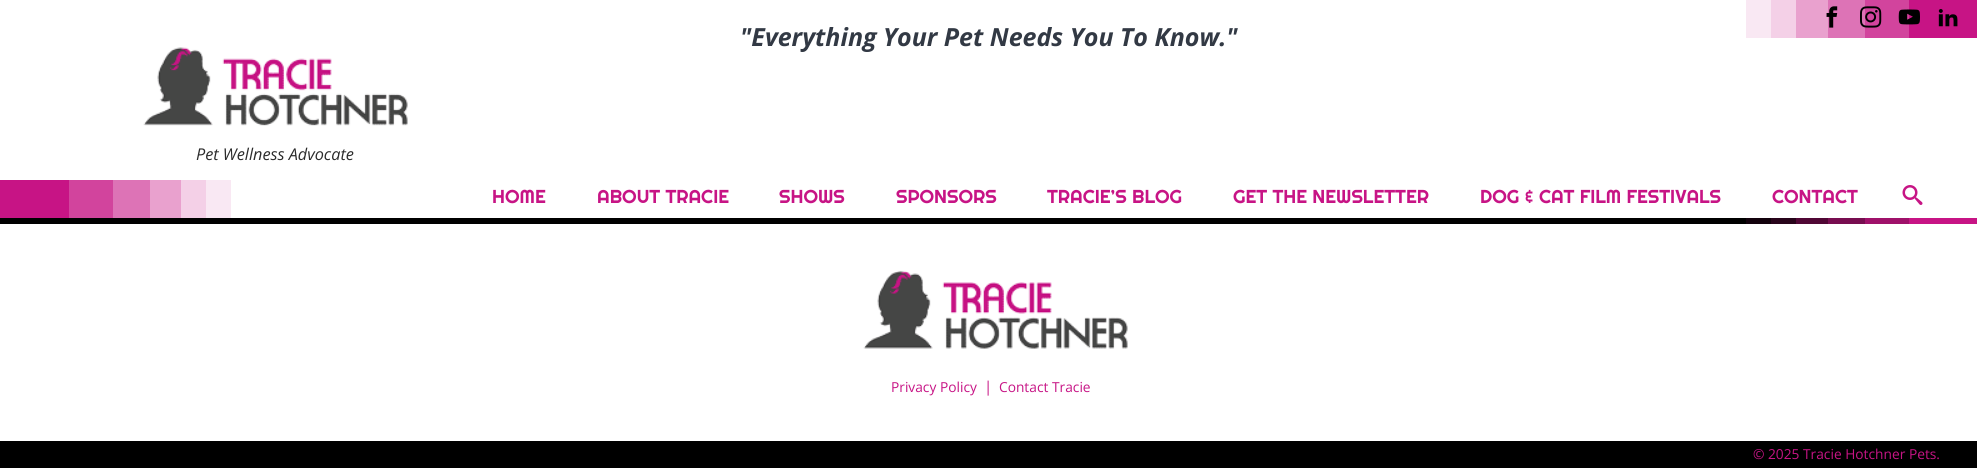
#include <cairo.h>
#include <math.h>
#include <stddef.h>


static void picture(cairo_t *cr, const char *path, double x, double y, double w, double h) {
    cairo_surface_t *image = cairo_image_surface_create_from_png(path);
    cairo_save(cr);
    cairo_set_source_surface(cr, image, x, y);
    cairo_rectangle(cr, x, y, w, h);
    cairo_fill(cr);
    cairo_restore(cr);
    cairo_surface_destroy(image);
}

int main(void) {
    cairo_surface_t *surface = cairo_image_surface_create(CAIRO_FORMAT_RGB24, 1977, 468);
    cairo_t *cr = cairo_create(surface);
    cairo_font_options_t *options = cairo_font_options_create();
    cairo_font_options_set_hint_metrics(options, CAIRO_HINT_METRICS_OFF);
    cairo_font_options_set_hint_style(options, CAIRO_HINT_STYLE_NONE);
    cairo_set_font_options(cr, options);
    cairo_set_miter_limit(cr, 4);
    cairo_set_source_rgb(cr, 1, 1, 1);
    cairo_paint(cr);
    cairo_set_source_rgb(cr, 0.78, 0.082, 0.522);
    cairo_rectangle(cr, 1909, 0, 68, 38);
    cairo_fill(cr);
    cairo_set_source_rgb(cr, 0.824, 0.267, 0.616);
    cairo_rectangle(cr, 1865, 0, 44, 38);
    cairo_fill(cr);
    cairo_set_source_rgb(cr, 0.867, 0.451, 0.714);
    cairo_rectangle(cr, 1828, 0, 37, 38);
    cairo_fill(cr);
    cairo_set_source_rgb(cr, 0.914, 0.631, 0.808);
    cairo_rectangle(cr, 1796, 0, 32, 38);
    cairo_fill(cr);
    cairo_set_source_rgb(cr, 0.957, 0.816, 0.906);
    cairo_rectangle(cr, 1771, 0, 25, 38);
    cairo_fill(cr);
    cairo_set_source_rgb(cr, 0.976, 0.91, 0.953);
    cairo_rectangle(cr, 1746, 0, 25, 38);
    cairo_fill(cr);
    picture(cr, "img1.png", 1826, 6, 12, 22);
    picture(cr, "img2.png", 1860, 6, 22, 22);
    picture(cr, "img3.png", 1898, 9, 22, 16);
    picture(cr, "img4.png", 1938, 9, 20, 18);
    cairo_select_font_face(cr, "Open Sans", CAIRO_FONT_SLANT_ITALIC, CAIRO_FONT_WEIGHT_BOLD);
    cairo_set_font_size(cr, 25);
    cairo_set_source_rgb(cr, 0.196, 0.224, 0.267);
    cairo_move_to(cr, 740, 46);
    cairo_show_text(cr, "\"Everything Your Pet Needs You To Know.\"");
    picture(cr, "img5.png", 143, 47, 265, 79);
    cairo_select_font_face(cr, "Open Sans", CAIRO_FONT_SLANT_ITALIC, CAIRO_FONT_WEIGHT_NORMAL);
    cairo_set_font_size(cr, 16.25);
    cairo_set_source_rgb(cr, 0.169, 0.169, 0.169);
    cairo_move_to(cr, 196, 160);
    cairo_show_text(cr, "Pet Wellness Advocate");
    cairo_set_source_rgb(cr, 0.78, 0.082, 0.522);
    cairo_rectangle(cr, 0, 180, 69, 38);
    cairo_fill(cr);
    cairo_set_source_rgb(cr, 0.824, 0.267, 0.616);
    cairo_rectangle(cr, 69, 180, 44, 38);
    cairo_fill(cr);
    cairo_set_source_rgb(cr, 0.867, 0.451, 0.714);
    cairo_rectangle(cr, 113, 180, 37, 38);
    cairo_fill(cr);
    cairo_set_source_rgb(cr, 0.914, 0.631, 0.808);
    cairo_rectangle(cr, 150, 180, 31, 38);
    cairo_fill(cr);
    cairo_set_source_rgb(cr, 0.957, 0.816, 0.906);
    cairo_rectangle(cr, 181, 180, 25, 38);
    cairo_fill(cr);
    cairo_set_source_rgb(cr, 0.976, 0.91, 0.953);
    cairo_rectangle(cr, 206, 180, 25, 38);
    cairo_fill(cr);
    cairo_select_font_face(cr, "Righteous", CAIRO_FONT_SLANT_NORMAL, CAIRO_FONT_WEIGHT_NORMAL);
    cairo_set_font_size(cr, 18.75);
    cairo_set_source_rgb(cr, 0.78, 0.082, 0.522);
    cairo_move_to(cr, 492, 203);
    cairo_show_text(cr, "HOME");
    cairo_move_to(cr, 597, 203);
    cairo_show_text(cr, "ABOUT TRACIE");
    cairo_move_to(cr, 779, 203);
    cairo_show_text(cr, "SHOWS");
    cairo_move_to(cr, 896, 203);
    cairo_show_text(cr, "SPONSORS");
    cairo_move_to(cr, 1047, 203);
    cairo_show_text(cr, "TRACIE’S BLOG");
    cairo_move_to(cr, 1233, 203);
    cairo_show_text(cr, "GET THE NEWSLETTER");
    cairo_move_to(cr, 1480, 203);
    cairo_show_text(cr, "DOG & CAT FILM FESTIVALS");
    cairo_move_to(cr, 1772, 203);
    cairo_show_text(cr, "CONTACT");
    picture(cr, "img6.png", 1902, 185, 21, 20);
    cairo_set_source_rgb(cr, 0, 0, 0);
    cairo_rectangle(cr, 0, 218, 1746, 6);
    cairo_fill(cr);
    cairo_set_source_rgb(cr, 0.78, 0.082, 0.522);
    cairo_rectangle(cr, 1909, 218, 68, 6);
    cairo_fill(cr);
    cairo_set_source_rgb(cr, 0.624, 0.067, 0.416);
    cairo_rectangle(cr, 1865, 218, 44, 6);
    cairo_fill(cr);
    cairo_set_source_rgb(cr, 0.467, 0.051, 0.314);
    cairo_rectangle(cr, 1828, 218, 37, 6);
    cairo_fill(cr);
    cairo_set_source_rgb(cr, 0.314, 0.031, 0.208);
    cairo_rectangle(cr, 1796, 218, 32, 6);
    cairo_fill(cr);
    cairo_set_source_rgb(cr, 0.157, 0.016, 0.106);
    cairo_rectangle(cr, 1771, 218, 25, 6);
    cairo_fill(cr);
    cairo_set_source_rgb(cr, 0.078, 0.008, 0.051);
    cairo_rectangle(cr, 1746, 218, 25, 6);
    cairo_fill(cr);
    picture(cr, "img7.png", 863, 270, 265, 79);
    cairo_select_font_face(cr, "Open Sans", CAIRO_FONT_SLANT_NORMAL, CAIRO_FONT_WEIGHT_NORMAL);
    cairo_set_font_size(cr, 13.75);
    cairo_set_source_rgb(cr, 0.78, 0.082, 0.522);
    cairo_move_to(cr, 891, 392);
    cairo_show_text(cr, "Privacy Policy");
    cairo_set_font_size(cr, 15);
    cairo_move_to(cr, 984, 392);
    cairo_show_text(cr, "|");
    cairo_set_font_size(cr, 13.75);
    cairo_move_to(cr, 999, 392);
    cairo_show_text(cr, "Contact Tracie");
    cairo_set_source_rgb(cr, 0, 0, 0);
    cairo_rectangle(cr, 0, 441, 1977, 27);
    cairo_fill(cr);
    cairo_set_source_rgb(cr, 0.78, 0.082, 0.522);
    cairo_move_to(cr, 1753, 459);
    cairo_show_text(cr, "© 2025 Tracie Hotchner Pets.");
    cairo_surface_write_to_png(surface, "page.png");
    cairo_font_options_destroy(options);
    cairo_destroy(cr);
    cairo_surface_destroy(surface);
    return 0;
}
